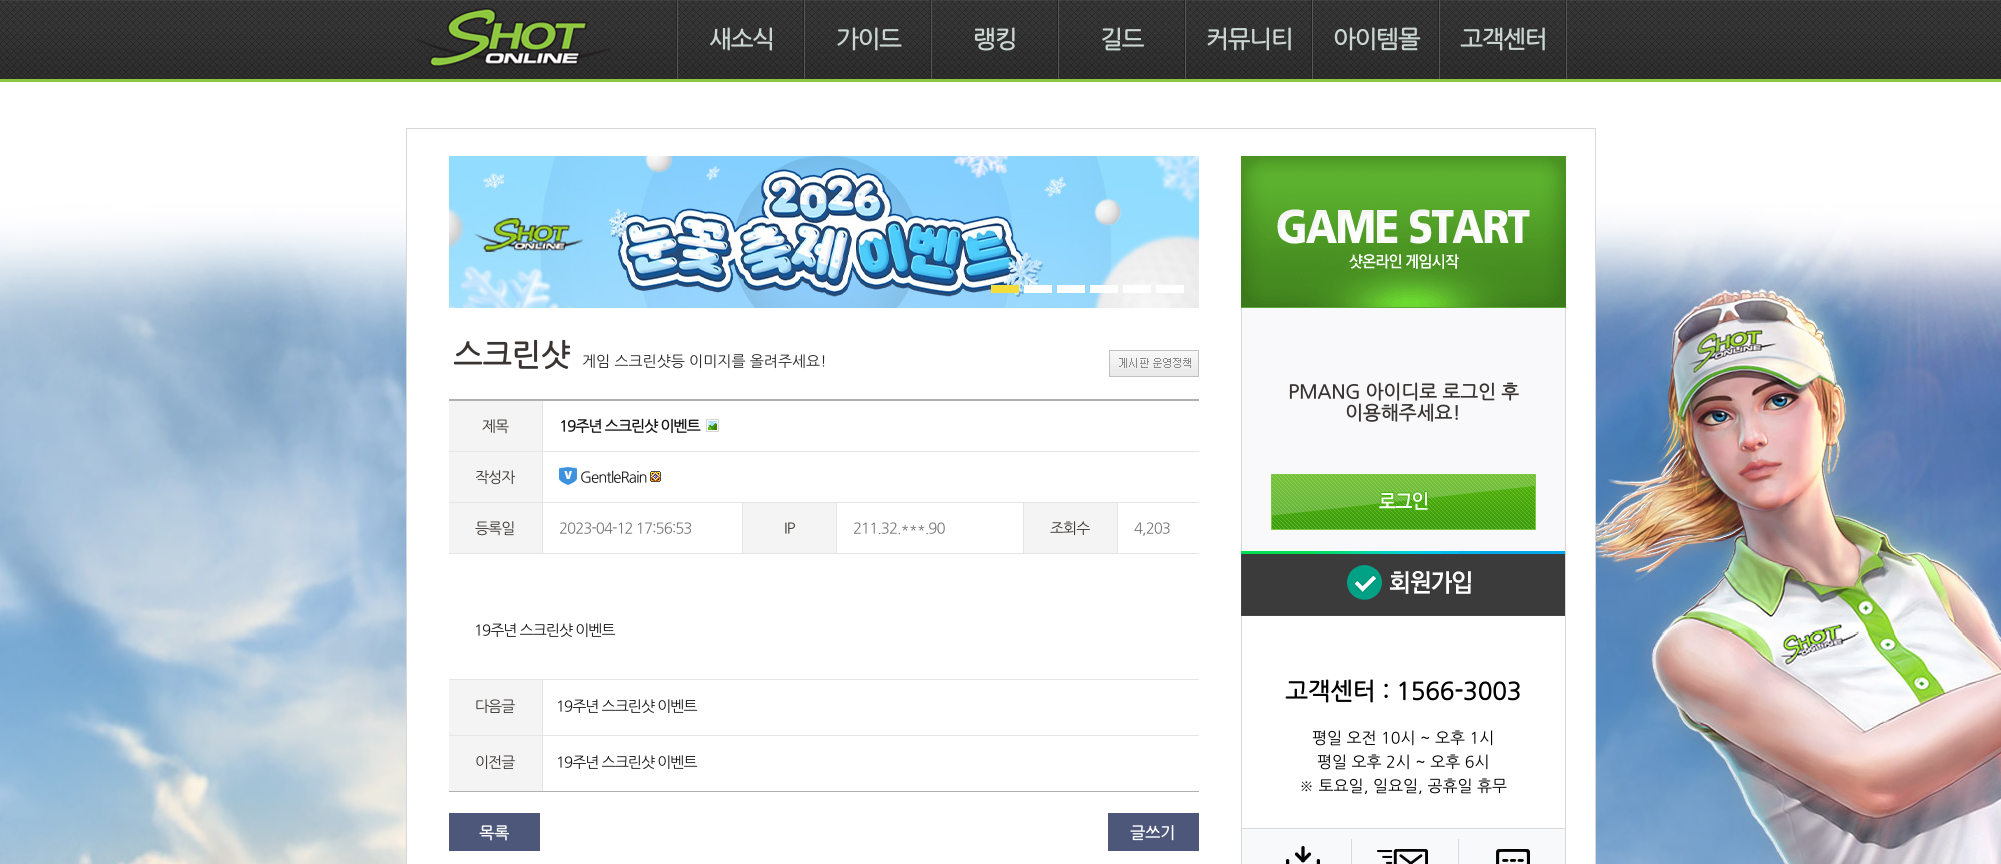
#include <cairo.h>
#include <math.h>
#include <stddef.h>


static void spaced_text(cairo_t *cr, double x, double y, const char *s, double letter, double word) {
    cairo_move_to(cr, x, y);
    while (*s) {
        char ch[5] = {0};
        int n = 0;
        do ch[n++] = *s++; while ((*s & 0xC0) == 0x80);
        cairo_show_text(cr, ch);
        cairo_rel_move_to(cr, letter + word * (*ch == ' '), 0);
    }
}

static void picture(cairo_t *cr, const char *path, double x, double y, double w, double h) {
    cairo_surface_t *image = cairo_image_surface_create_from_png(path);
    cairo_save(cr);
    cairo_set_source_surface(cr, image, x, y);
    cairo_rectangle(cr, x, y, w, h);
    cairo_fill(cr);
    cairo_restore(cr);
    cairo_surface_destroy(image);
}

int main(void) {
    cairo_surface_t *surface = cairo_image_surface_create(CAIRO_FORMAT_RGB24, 2001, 864);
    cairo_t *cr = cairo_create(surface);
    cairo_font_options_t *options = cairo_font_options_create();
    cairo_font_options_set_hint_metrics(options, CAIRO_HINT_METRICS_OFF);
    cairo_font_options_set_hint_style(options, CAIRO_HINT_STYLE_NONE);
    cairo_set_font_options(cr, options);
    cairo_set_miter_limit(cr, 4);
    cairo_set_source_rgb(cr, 1, 1, 1);
    cairo_paint(cr);
    picture(cr, "img1.png", 0, 0, 2001, 82);
    picture(cr, "img2.png", 676, 0, 2, 79);
    picture(cr, "img3.png", 415, 8, 196, 59);
    picture(cr, "img2.png", 803, 0, 2, 79);
    cairo_select_font_face(cr, "NanumGothic", CAIRO_FONT_SLANT_NORMAL, CAIRO_FONT_WEIGHT_BOLD);
    cairo_set_font_size(cr, 24);
    cairo_set_source_rgb(cr, 0.792, 0.839, 0.824);
    spaced_text(cr, 709, 47, "새소식", -1, 0);
    picture(cr, "img2.png", 930, 0, 2, 79);
    spaced_text(cr, 836, 47, "가이드", -1, 0);
    picture(cr, "img2.png", 1057, 0, 2, 79);
    spaced_text(cr, 973, 47, "랭킹", -1, 0);
    picture(cr, "img2.png", 1184, 0, 2, 79);
    spaced_text(cr, 1100, 47, "길드", -1, 0);
    picture(cr, "img2.png", 1311, 0, 2, 79);
    spaced_text(cr, 1206, 47, "커뮤니티", -1, 0);
    picture(cr, "img2.png", 1438, 0, 2, 79);
    spaced_text(cr, 1333, 47, "아이템몰", -1, 0);
    picture(cr, "img2.png", 1565, 0, 2, 79);
    spaced_text(cr, 1460, 47, "고객센터", -1, 0);
    picture(cr, "img4.png", 0, 204, 2001, 660);
    picture(cr, "img5.png", 407, 129, 834, 735);
    cairo_rectangle(cr, 406.5, 128.5, 1189, 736);
    cairo_set_source_rgb(cr, 0.843, 0.843, 0.843);
    cairo_set_line_width(cr, 1);
    cairo_stroke(cr);
    picture(cr, "img6.png", 449, 156, 750, 152);
    cairo_set_source_rgb(cr, 0.957, 0.863, 0.235);
    cairo_rectangle(cr, 991, 285, 28, 8);
    cairo_fill(cr);
    cairo_set_source_rgb(cr, 1, 1, 1);
    cairo_rectangle(cr, 1024, 285, 28, 8);
    cairo_fill(cr);
    cairo_rectangle(cr, 1057, 285, 28, 8);
    cairo_fill(cr);
    cairo_rectangle(cr, 1090, 285, 28, 8);
    cairo_fill(cr);
    cairo_rectangle(cr, 1123, 285, 28, 8);
    cairo_fill(cr);
    cairo_rectangle(cr, 1156, 285, 28, 8);
    cairo_fill(cr);
    cairo_set_font_size(cr, 31);
    cairo_set_source_rgb(cr, 0.224, 0.204, 0.192);
    cairo_move_to(cr, 453, 365);
    cairo_show_text(cr, "스크린샷");
    cairo_select_font_face(cr, "NanumGothic", CAIRO_FONT_SLANT_NORMAL, CAIRO_FONT_WEIGHT_NORMAL);
    cairo_set_font_size(cr, 15);
    cairo_set_source_rgb(cr, 0.153, 0.153, 0.153);
    cairo_move_to(cr, 582, 366);
    cairo_show_text(cr, "게임 스크린샷등 이미지를 올려주세요!");
    picture(cr, "img7.png", 1109, 350, 90, 27);
    cairo_set_source_rgb(cr, 0.69, 0.69, 0.69);
    cairo_rectangle(cr, 449, 399, 750, 2);
    cairo_fill(cr);
    cairo_set_source_rgb(cr, 0.957, 0.957, 0.957);
    cairo_rectangle(cr, 449, 401, 93, 50);
    cairo_fill(cr);
    cairo_set_source_rgb(cr, 0.898, 0.898, 0.898);
    cairo_rectangle(cr, 542, 401, 1, 153);
    cairo_fill(cr);
    cairo_rectangle(cr, 449, 451, 750, 1);
    cairo_fill(cr);
    cairo_set_source_rgb(cr, 0.224, 0.204, 0.192);
    spaced_text(cr, 482, 431, "제목", -1, 0);
    cairo_select_font_face(cr, "NanumGothic", CAIRO_FONT_SLANT_NORMAL, CAIRO_FONT_WEIGHT_BOLD);
    cairo_set_source_rgb(cr, 0.09, 0.09, 0.09);
    spaced_text(cr, 559, 431, "19주년 스크린샷 이벤트", -1, 0);
    picture(cr, "img8.png", 706, 419, 13, 13);
    cairo_set_source_rgb(cr, 0.957, 0.957, 0.957);
    cairo_rectangle(cr, 449, 452, 93, 50);
    cairo_fill(cr);
    cairo_set_source_rgb(cr, 0.898, 0.898, 0.898);
    cairo_rectangle(cr, 449, 502, 750, 1);
    cairo_fill(cr);
    cairo_select_font_face(cr, "NanumGothic", CAIRO_FONT_SLANT_NORMAL, CAIRO_FONT_WEIGHT_NORMAL);
    cairo_set_source_rgb(cr, 0.224, 0.204, 0.192);
    spaced_text(cr, 475, 482, "작성자", -1, 0);
    picture(cr, "img9.png", 559, 467, 18, 18);
    cairo_set_source_rgb(cr, 0.09, 0.09, 0.09);
    spaced_text(cr, 580, 482, "GentleRain", -1, 0);
    picture(cr, "img10.png", 650, 471, 11, 11);
    cairo_set_source_rgb(cr, 0.957, 0.957, 0.957);
    cairo_rectangle(cr, 449, 503, 93, 50);
    cairo_fill(cr);
    cairo_set_source_rgb(cr, 0.898, 0.898, 0.898);
    cairo_rectangle(cr, 449, 553, 94, 1);
    cairo_fill(cr);
    cairo_set_source_rgb(cr, 0.224, 0.204, 0.192);
    spaced_text(cr, 475, 533, "등록일", -1, 0);
    cairo_set_source_rgb(cr, 0.898, 0.898, 0.898);
    cairo_rectangle(cr, 742, 503, 1, 51);
    cairo_fill(cr);
    cairo_rectangle(cr, 543, 553, 200, 1);
    cairo_fill(cr);
    cairo_set_source_rgb(cr, 0.459, 0.459, 0.459);
    spaced_text(cr, 559, 533, "2023-04-12 17:56:53", -1, 0);
    cairo_set_source_rgb(cr, 0.957, 0.957, 0.957);
    cairo_rectangle(cr, 743, 503, 93, 50);
    cairo_fill(cr);
    cairo_set_source_rgb(cr, 0.898, 0.898, 0.898);
    cairo_rectangle(cr, 836, 503, 1, 51);
    cairo_fill(cr);
    cairo_rectangle(cr, 743, 553, 94, 1);
    cairo_fill(cr);
    cairo_set_source_rgb(cr, 0.224, 0.204, 0.192);
    spaced_text(cr, 784, 533, "IP", -1, 0);
    cairo_set_source_rgb(cr, 0.898, 0.898, 0.898);
    cairo_rectangle(cr, 1023, 503, 1, 51);
    cairo_fill(cr);
    cairo_rectangle(cr, 837, 553, 187, 1);
    cairo_fill(cr);
    cairo_set_source_rgb(cr, 0.459, 0.459, 0.459);
    spaced_text(cr, 853, 533, "211.32.***.90", -1, 0);
    cairo_set_source_rgb(cr, 0.957, 0.957, 0.957);
    cairo_rectangle(cr, 1024, 503, 93, 50);
    cairo_fill(cr);
    cairo_set_source_rgb(cr, 0.898, 0.898, 0.898);
    cairo_rectangle(cr, 1117, 503, 1, 51);
    cairo_fill(cr);
    cairo_rectangle(cr, 1024, 553, 175, 1);
    cairo_fill(cr);
    cairo_set_source_rgb(cr, 0.224, 0.204, 0.192);
    spaced_text(cr, 1050, 533, "조회수", -1, 0);
    cairo_set_source_rgb(cr, 0.459, 0.459, 0.459);
    spaced_text(cr, 1134, 533, "4,203", -1, 0);
    cairo_set_source_rgb(cr, 0.09, 0.09, 0.09);
    spaced_text(cr, 474, 635, "19주년 스크린샷 이벤트", -1, 0);
    cairo_set_source_rgb(cr, 0.69, 0.69, 0.69);
    cairo_rectangle(cr, 449, 791, 750, 1);
    cairo_fill(cr);
    cairo_set_source_rgb(cr, 0.957, 0.957, 0.957);
    cairo_rectangle(cr, 449, 680, 93, 55);
    cairo_fill(cr);
    cairo_set_source_rgb(cr, 0.898, 0.898, 0.898);
    cairo_rectangle(cr, 449, 679, 750, 1);
    cairo_fill(cr);
    cairo_rectangle(cr, 542, 679, 1, 56);
    cairo_fill(cr);
    cairo_set_source_rgb(cr, 0.224, 0.204, 0.192);
    spaced_text(cr, 475, 711, "다음글", -1, 0);
    cairo_set_source_rgb(cr, 0.09, 0.09, 0.09);
    spaced_text(cr, 556, 711, "19주년 스크린샷 이벤트", -1, 0);
    cairo_set_source_rgb(cr, 0.957, 0.957, 0.957);
    cairo_rectangle(cr, 449, 736, 93, 55);
    cairo_fill(cr);
    cairo_set_source_rgb(cr, 0.898, 0.898, 0.898);
    cairo_rectangle(cr, 449, 735, 750, 1);
    cairo_fill(cr);
    cairo_rectangle(cr, 542, 735, 1, 56);
    cairo_fill(cr);
    cairo_set_source_rgb(cr, 0.224, 0.204, 0.192);
    spaced_text(cr, 475, 767, "이전글", -1, 0);
    cairo_set_source_rgb(cr, 0.09, 0.09, 0.09);
    spaced_text(cr, 556, 767, "19주년 스크린샷 이벤트", -1, 0);
    cairo_set_source_rgb(cr, 0.298, 0.341, 0.478);
    cairo_rectangle(cr, 449, 813, 91, 38);
    cairo_fill(cr);
    cairo_select_font_face(cr, "NanumGothic", CAIRO_FONT_SLANT_NORMAL, CAIRO_FONT_WEIGHT_BOLD);
    cairo_set_font_size(cr, 16);
    cairo_set_source_rgb(cr, 1, 1, 1);
    cairo_move_to(cr, 479, 838);
    cairo_show_text(cr, "목록");
    cairo_set_source_rgb(cr, 0.298, 0.341, 0.478);
    cairo_rectangle(cr, 1108, 813, 91, 38);
    cairo_fill(cr);
    cairo_set_source_rgb(cr, 1, 1, 1);
    cairo_move_to(cr, 1130, 838);
    cairo_show_text(cr, "글쓰기");
    cairo_rectangle(cr, 1241, 204, 354, 660);
    cairo_fill(cr);
    picture(cr, "img11.png", 1241, 156, 325, 152);
    cairo_set_source_rgb(cr, 0.973, 0.976, 0.984);
    cairo_rectangle(cr, 1242, 308, 323, 243);
    cairo_fill(cr);
    cairo_set_source_rgb(cr, 0.843, 0.843, 0.843);
    cairo_rectangle(cr, 1565, 308, 1, 556);
    cairo_fill(cr);
    cairo_rectangle(cr, 1241, 308, 1, 243);
    cairo_fill(cr);
    cairo_set_font_size(cr, 19);
    cairo_set_source_rgb(cr, 0.224, 0.204, 0.192);
    cairo_move_to(cr, 1288, 398);
    cairo_show_text(cr, "PMANG 아이디로 로그인 후");
    cairo_move_to(cr, 1345, 419);
    cairo_show_text(cr, "이용해주세요!");
    picture(cr, "img12.png", 1271, 474, 265, 56);
    picture(cr, "img13.png", 1241, 551, 324, 65);
    picture(cr, "img14.png", 1242, 828, 323, 36);
    cairo_set_source_rgb(cr, 0.843, 0.843, 0.843);
    cairo_rectangle(cr, 1241, 616, 1, 248);
    cairo_fill(cr);
    cairo_set_font_size(cr, 24);
    cairo_set_source_rgb(cr, 0, 0, 0);
    cairo_move_to(cr, 1285, 699);
    cairo_show_text(cr, "고객센터 : 1566-3003");
    cairo_select_font_face(cr, "NanumGothic", CAIRO_FONT_SLANT_NORMAL, CAIRO_FONT_WEIGHT_NORMAL);
    cairo_set_font_size(cr, 16);
    cairo_move_to(cr, 1312, 743);
    cairo_show_text(cr, "평일 오전 10시 ~ 오후 1시");
    cairo_move_to(cr, 1317, 767);
    cairo_show_text(cr, "평일 오후 2시 ~ 오후 6시");
    cairo_move_to(cr, 1299, 791);
    cairo_show_text(cr, "※ 토요일, 일요일, 공휴일 휴무");
    cairo_surface_write_to_png(surface, "page.png");
    cairo_font_options_destroy(options);
    cairo_destroy(cr);
    cairo_surface_destroy(surface);
    return 0;
}
